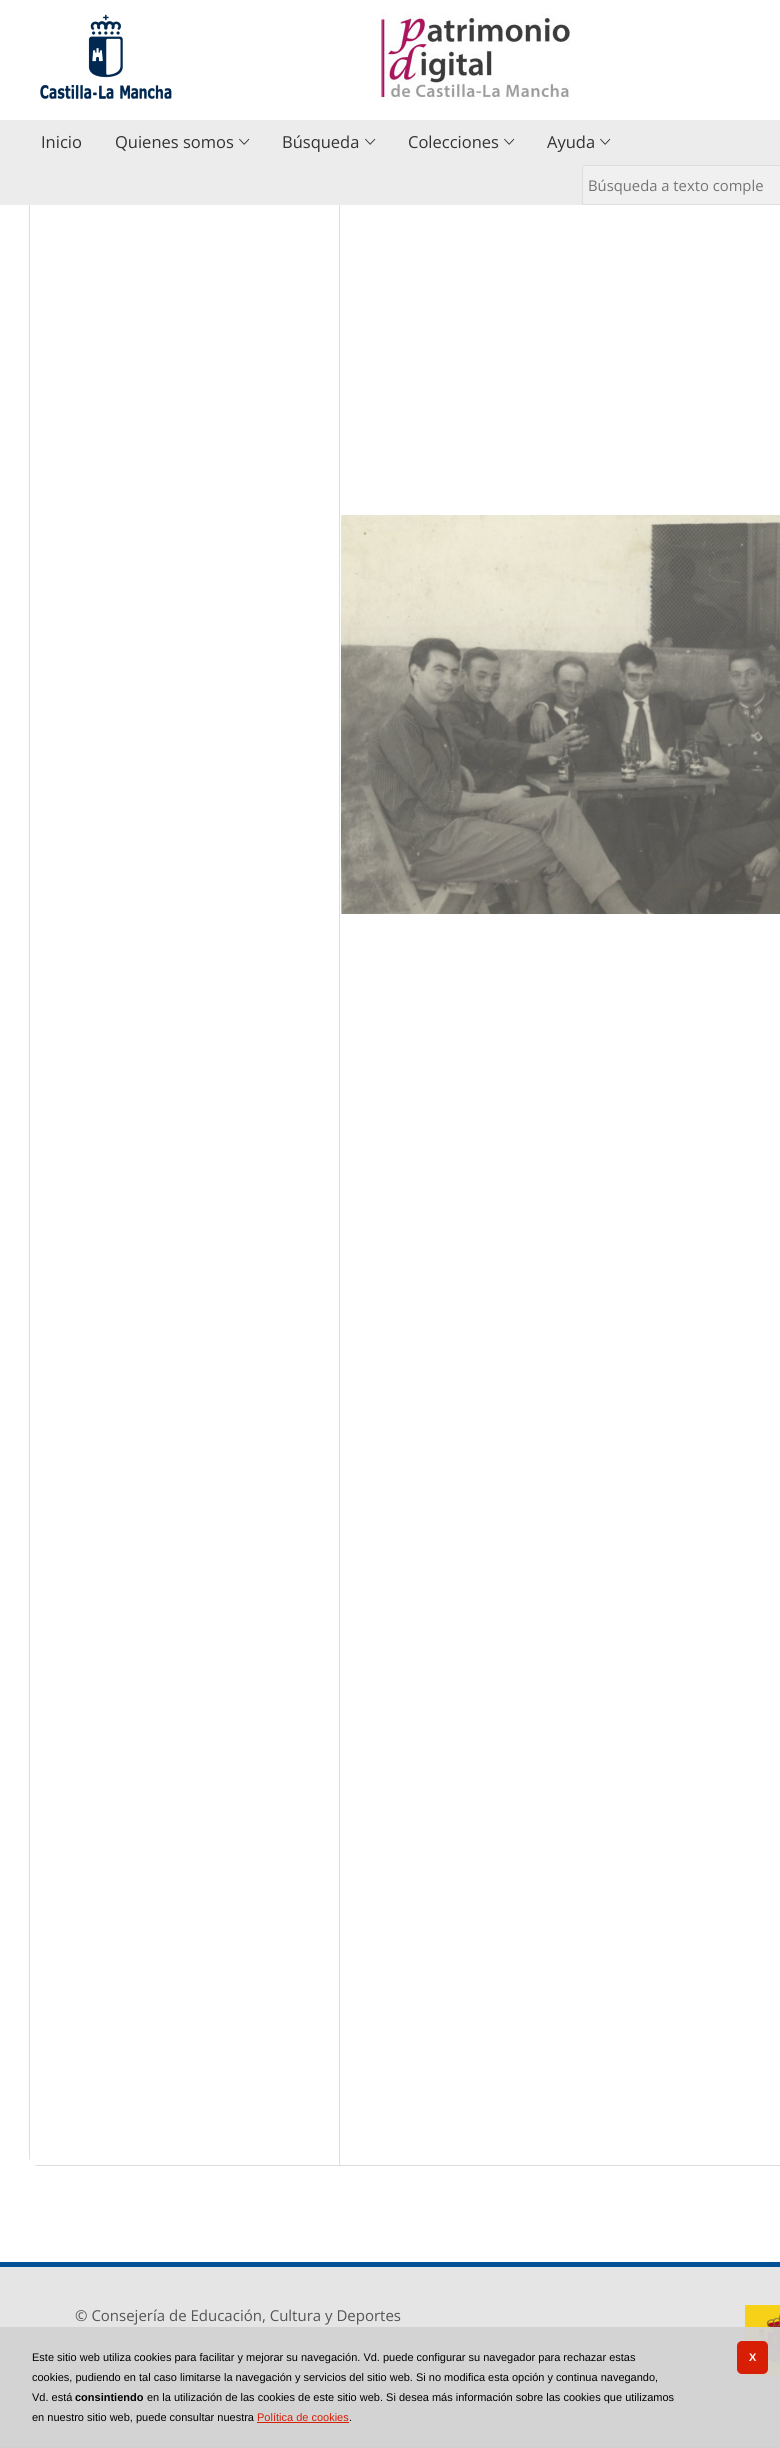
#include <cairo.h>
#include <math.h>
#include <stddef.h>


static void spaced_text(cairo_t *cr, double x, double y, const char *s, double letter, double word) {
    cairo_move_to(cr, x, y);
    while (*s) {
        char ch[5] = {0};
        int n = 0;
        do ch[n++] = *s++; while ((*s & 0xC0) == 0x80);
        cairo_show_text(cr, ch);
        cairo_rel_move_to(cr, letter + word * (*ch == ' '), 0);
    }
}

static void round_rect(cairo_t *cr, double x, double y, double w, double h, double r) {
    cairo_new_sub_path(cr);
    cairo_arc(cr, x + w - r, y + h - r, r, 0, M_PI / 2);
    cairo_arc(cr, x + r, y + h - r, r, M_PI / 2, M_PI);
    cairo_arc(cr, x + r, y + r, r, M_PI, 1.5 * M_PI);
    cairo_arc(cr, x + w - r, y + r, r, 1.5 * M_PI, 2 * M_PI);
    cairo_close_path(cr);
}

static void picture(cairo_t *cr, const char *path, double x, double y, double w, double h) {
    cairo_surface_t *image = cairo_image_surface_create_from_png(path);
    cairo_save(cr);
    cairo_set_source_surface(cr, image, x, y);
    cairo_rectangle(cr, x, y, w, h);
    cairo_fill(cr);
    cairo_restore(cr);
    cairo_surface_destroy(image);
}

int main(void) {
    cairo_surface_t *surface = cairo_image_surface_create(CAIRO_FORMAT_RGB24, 780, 2448);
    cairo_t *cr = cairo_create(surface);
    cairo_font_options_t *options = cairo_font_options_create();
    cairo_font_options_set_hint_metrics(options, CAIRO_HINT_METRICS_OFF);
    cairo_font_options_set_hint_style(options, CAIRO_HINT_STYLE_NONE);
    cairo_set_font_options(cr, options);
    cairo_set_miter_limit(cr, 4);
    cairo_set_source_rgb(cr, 1, 1, 1);
    cairo_paint(cr);
    round_rect(cr, 29.5, -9.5, 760, 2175, 8.5);
    cairo_set_source_rgb(cr, 0.867, 0.867, 0.867);
    cairo_set_line_width(cr, 1);
    cairo_stroke(cr);
    cairo_set_source_rgb(cr, 1, 1, 1);
    cairo_rectangle(cr, 30, 2158, 7, 7);
    cairo_fill(cr);
    cairo_set_source_rgb(cr, 0.867, 0.867, 0.867);
    cairo_rectangle(cr, 339, 205, 1, 1960);
    cairo_fill(cr);
    picture(cr, "img1.png", 341, 515, 439, 399);
    cairo_set_source_rgb(cr, 1, 1, 1);
    cairo_rectangle(cr, 29, 0, 1, 120);
    cairo_fill(cr);
    picture(cr, "img2.png", 380, 13, 191, 88);
    picture(cr, "img3.png", 40, 14, 132, 85);
    cairo_set_source_rgb(cr, 0.925, 0.925, 0.925);
    cairo_rectangle(cr, 0, 120, 780, 85);
    cairo_fill(cr);
    cairo_select_font_face(cr, "Open Sans", CAIRO_FONT_SLANT_NORMAL, CAIRO_FONT_WEIGHT_NORMAL);
    cairo_set_font_size(cr, 16.5);
    cairo_set_source_rgb(cr, 0.2, 0.2, 0.2);
    cairo_move_to(cr, 41, 148);
    cairo_show_text(cr, "Inicio");
    cairo_move_to(cr, 115, 148);
    cairo_show_text(cr, "Quienes somos");
    picture(cr, "img4.png", 239, 138, 11, 7);
    cairo_move_to(cr, 282, 148);
    cairo_show_text(cr, "Búsqueda");
    picture(cr, "img4.png", 365, 138, 11, 7);
    cairo_move_to(cr, 408, 148);
    cairo_show_text(cr, "Colecciones");
    picture(cr, "img4.png", 504, 138, 11, 7);
    cairo_move_to(cr, 547, 148);
    cairo_show_text(cr, "Ayuda");
    picture(cr, "img4.png", 600, 138, 11, 7);
    cairo_set_source_rgb(cr, 0.941, 0.941, 0.941);
    round_rect(cr, 582.5, 165.5, 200, 39, 1.5);
    cairo_fill_preserve(cr);
    cairo_set_source_rgb(cr, 0.867, 0.867, 0.867);
    cairo_stroke(cr);
    cairo_set_font_size(cr, 14.8);
    cairo_set_source_rgb(cr, 0.459, 0.459, 0.459);
    cairo_move_to(cr, 588, 191);
    cairo_show_text(cr, "Búsqueda a texto comple");
    cairo_set_source_rgb(cr, 0.898, 0.898, 0.898);
    cairo_rectangle(cr, 0, 2267, 780, 181);
    cairo_fill(cr);
    cairo_set_source_rgb(cr, 0, 0.318, 0.588);
    cairo_rectangle(cr, 0, 2262, 780, 5);
    cairo_fill(cr);
    cairo_set_font_size(cr, 15);
    cairo_set_source_rgb(cr, 0.333, 0.333, 0.333);
    cairo_move_to(cr, 75, 2321);
    cairo_show_text(cr, "© Consejería de Educación, Cultura y Deportes");
    picture(cr, "img5.png", 745, 2305, 35, 71);
    cairo_set_source_rgba(cr, 0.824, 0.824, 0.824, 0.95);
    cairo_rectangle(cr, 0, 2327, 780, 121);
    cairo_fill(cr);
    cairo_new_path(cr);
    cairo_move_to(cr, 0, 2447.5);
    cairo_line_to(cr, 780, 2447.5);
    cairo_set_source_rgb(cr, 0.8, 0.8, 0.8);
    cairo_set_dash(cr, (double[]){1, 1}, 2, 0);
    cairo_stroke(cr);
    cairo_select_font_face(cr, "Liberation Sans", CAIRO_FONT_SLANT_NORMAL, CAIRO_FONT_WEIGHT_NORMAL);
    cairo_set_font_size(cr, 11);
    cairo_set_source_rgb(cr, 0, 0, 0);
    cairo_move_to(cr, 32, 2361);
    cairo_show_text(cr, "Este sitio web utiliza cookies para facilitar y mejorar su navegación. Vd. puede configurar su navegador para rechazar estas");
    cairo_move_to(cr, 32, 2381);
    cairo_show_text(cr, "cookies, pudiendo en tal caso limitarse la navegación y servicios del sitio web. Si no modifica esta opción y continua navegando,");
    cairo_move_to(cr, 32, 2401);
    cairo_show_text(cr, "Vd. está");
    cairo_select_font_face(cr, "Liberation Sans", CAIRO_FONT_SLANT_NORMAL, CAIRO_FONT_WEIGHT_BOLD);
    cairo_move_to(cr, 75, 2401);
    cairo_show_text(cr, "consintiendo");
    cairo_select_font_face(cr, "Liberation Sans", CAIRO_FONT_SLANT_NORMAL, CAIRO_FONT_WEIGHT_NORMAL);
    cairo_move_to(cr, 147, 2401);
    cairo_show_text(cr, "en la utilización de las cookies de este sitio web. Si desea más información sobre las cookies que utilizamos");
    cairo_move_to(cr, 32, 2421);
    cairo_show_text(cr, "en nuestro sitio web, puede consultar nuestra");
    cairo_set_source_rgb(cr, 0.847, 0.118, 0.02);
    cairo_move_to(cr, 257, 2421);
    cairo_show_text(cr, "Política de cookies");
    cairo_set_source_rgb(cr, 0, 0, 0);
    cairo_move_to(cr, 349, 2421);
    cairo_show_text(cr, ".");
    cairo_set_source_rgb(cr, 0.847, 0.118, 0.02);
    cairo_rectangle(cr, 257, 2422, 92, 1);
    cairo_fill(cr);
    round_rect(cr, 737, 2341, 31, 33, 5);
    cairo_fill(cr);
    cairo_select_font_face(cr, "Liberation Sans", CAIRO_FONT_SLANT_NORMAL, CAIRO_FONT_WEIGHT_BOLD);
    cairo_set_source_rgb(cr, 1, 1, 1);
    spaced_text(cr, 749, 2361, "X", -1, 0);
    cairo_surface_write_to_png(surface, "page.png");
    cairo_font_options_destroy(options);
    cairo_destroy(cr);
    cairo_surface_destroy(surface);
    return 0;
}
